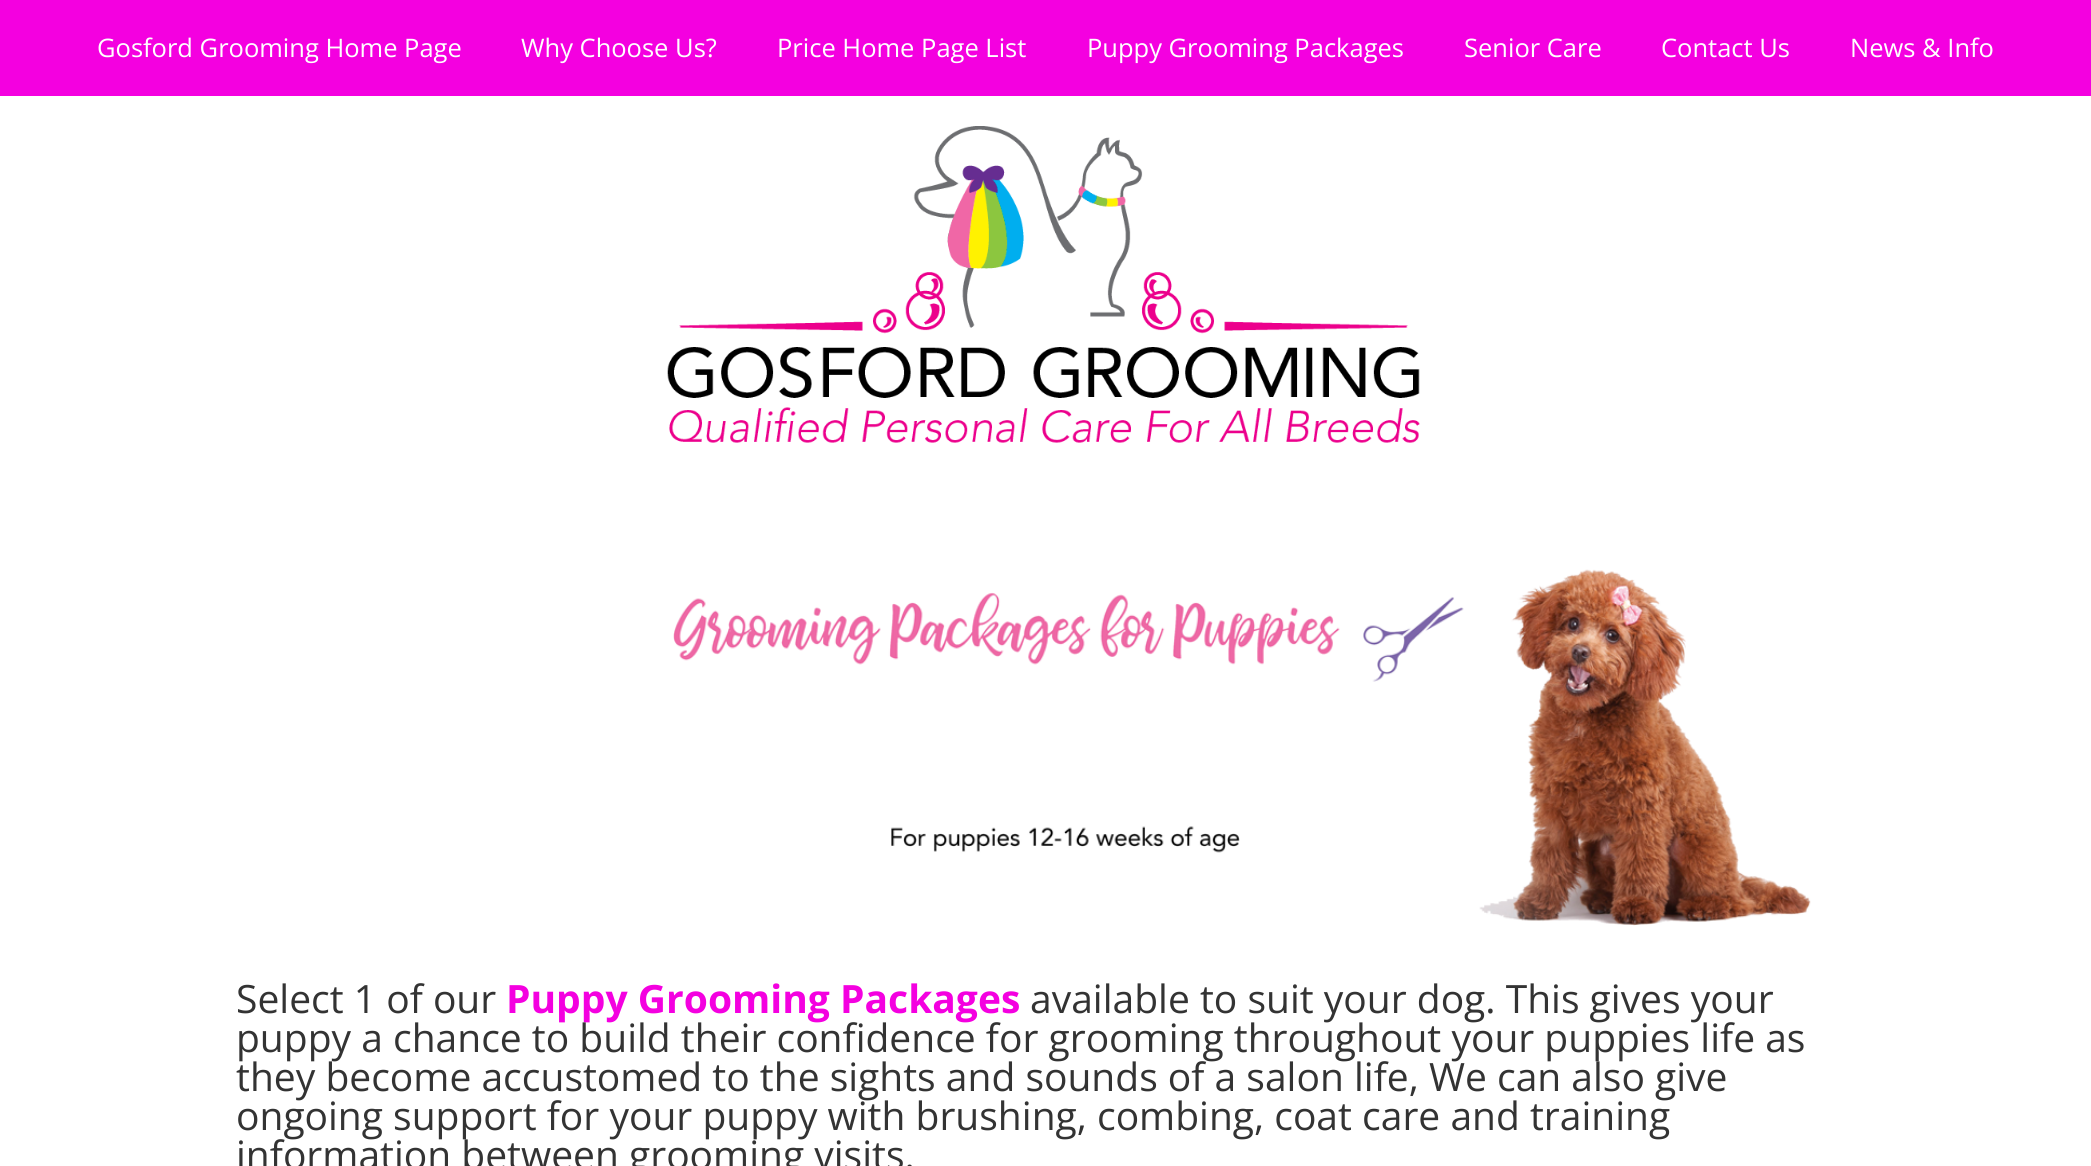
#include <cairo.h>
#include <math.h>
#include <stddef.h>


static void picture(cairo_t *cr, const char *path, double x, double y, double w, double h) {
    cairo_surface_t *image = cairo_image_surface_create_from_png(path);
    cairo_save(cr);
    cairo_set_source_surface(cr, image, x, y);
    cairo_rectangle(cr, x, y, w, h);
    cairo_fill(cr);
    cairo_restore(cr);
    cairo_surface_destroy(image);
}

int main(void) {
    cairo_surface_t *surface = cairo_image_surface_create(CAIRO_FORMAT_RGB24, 2091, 1166);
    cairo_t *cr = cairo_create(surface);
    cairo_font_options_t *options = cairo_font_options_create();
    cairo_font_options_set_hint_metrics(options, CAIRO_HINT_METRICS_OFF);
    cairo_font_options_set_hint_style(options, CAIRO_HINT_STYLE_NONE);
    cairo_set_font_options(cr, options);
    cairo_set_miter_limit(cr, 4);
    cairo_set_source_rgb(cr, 1, 1, 1);
    cairo_paint(cr);
    cairo_set_source_rgb(cr, 0.957, 0, 0.878);
    cairo_rectangle(cr, 0, 0, 2091, 96);
    cairo_fill(cr);
    cairo_select_font_face(cr, "Open Sans", CAIRO_FONT_SLANT_NORMAL, CAIRO_FONT_WEIGHT_NORMAL);
    cairo_set_font_size(cr, 25.5);
    cairo_set_source_rgb(cr, 1, 1, 1);
    cairo_move_to(cr, 97, 57);
    cairo_show_text(cr, "Gosford Grooming Home Page");
    cairo_move_to(cr, 521, 57);
    cairo_show_text(cr, "Why Choose Us?");
    cairo_move_to(cr, 777, 57);
    cairo_show_text(cr, "Price Home Page List");
    cairo_move_to(cr, 1087, 57);
    cairo_show_text(cr, "Puppy Grooming Packages");
    cairo_move_to(cr, 1464, 57);
    cairo_show_text(cr, "Senior Care");
    cairo_move_to(cr, 1661, 57);
    cairo_show_text(cr, "Contact Us");
    cairo_move_to(cr, 1850, 57);
    cairo_show_text(cr, "News & Info");
    picture(cr, "img1.png", 667, 126, 753, 317);
    picture(cr, "img2.png", 673, 569, 1138, 357);
    cairo_set_font_size(cr, 39);
    cairo_set_source_rgb(cr, 0.2, 0.2, 0.2);
    cairo_move_to(cr, 236, 1013);
    cairo_show_text(cr, "Select 1 of our");
    cairo_select_font_face(cr, "Open Sans", CAIRO_FONT_SLANT_NORMAL, CAIRO_FONT_WEIGHT_BOLD);
    cairo_set_source_rgb(cr, 0.957, 0, 0.878);
    cairo_move_to(cr, 506, 1013);
    cairo_show_text(cr, "Puppy Grooming Packages");
    cairo_select_font_face(cr, "Open Sans", CAIRO_FONT_SLANT_NORMAL, CAIRO_FONT_WEIGHT_NORMAL);
    cairo_set_source_rgb(cr, 0.2, 0.2, 0.2);
    cairo_move_to(cr, 1030, 1013);
    cairo_show_text(cr, "available to suit your dog. This gives your");
    cairo_move_to(cr, 236, 1052);
    cairo_show_text(cr, "puppy a chance to build their confidence for grooming throughout your puppies life as");
    cairo_move_to(cr, 236, 1091);
    cairo_show_text(cr, "they become accustomed to the sights and sounds of a salon life, We can also give");
    cairo_move_to(cr, 236, 1130);
    cairo_show_text(cr, "ongoing support for your puppy with brushing, combing, coat care and training");
    cairo_move_to(cr, 236, 1169);
    cairo_show_text(cr, "information between grooming visits.");
    cairo_surface_write_to_png(surface, "page.png");
    cairo_font_options_destroy(options);
    cairo_destroy(cr);
    cairo_surface_destroy(surface);
    return 0;
}
